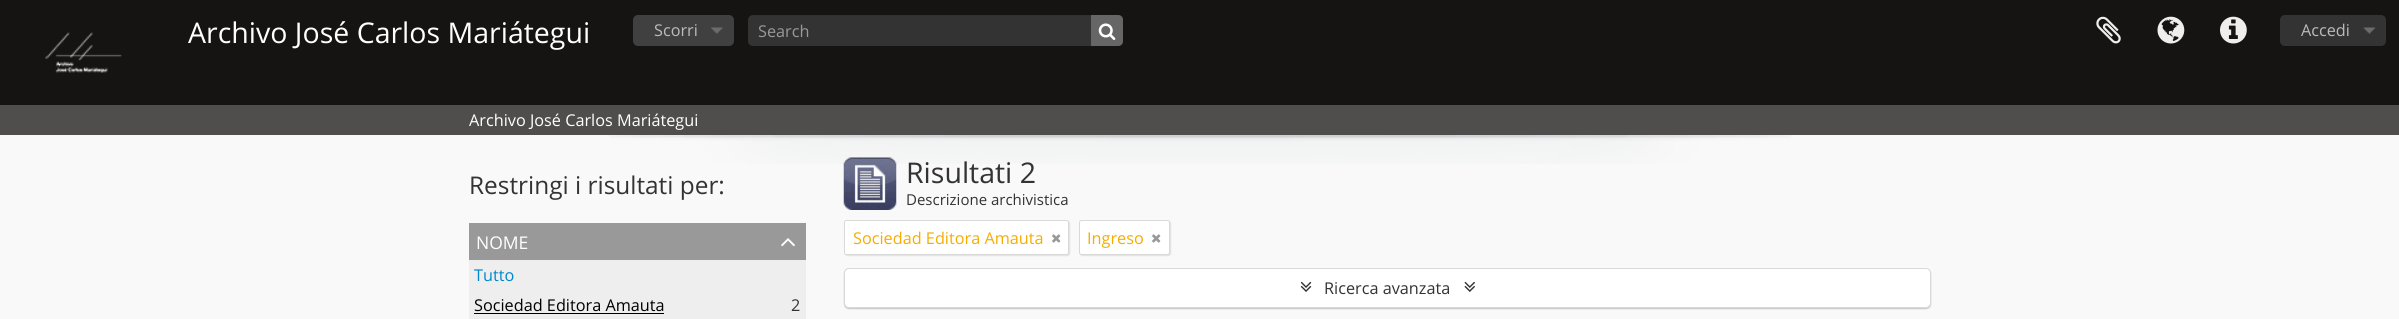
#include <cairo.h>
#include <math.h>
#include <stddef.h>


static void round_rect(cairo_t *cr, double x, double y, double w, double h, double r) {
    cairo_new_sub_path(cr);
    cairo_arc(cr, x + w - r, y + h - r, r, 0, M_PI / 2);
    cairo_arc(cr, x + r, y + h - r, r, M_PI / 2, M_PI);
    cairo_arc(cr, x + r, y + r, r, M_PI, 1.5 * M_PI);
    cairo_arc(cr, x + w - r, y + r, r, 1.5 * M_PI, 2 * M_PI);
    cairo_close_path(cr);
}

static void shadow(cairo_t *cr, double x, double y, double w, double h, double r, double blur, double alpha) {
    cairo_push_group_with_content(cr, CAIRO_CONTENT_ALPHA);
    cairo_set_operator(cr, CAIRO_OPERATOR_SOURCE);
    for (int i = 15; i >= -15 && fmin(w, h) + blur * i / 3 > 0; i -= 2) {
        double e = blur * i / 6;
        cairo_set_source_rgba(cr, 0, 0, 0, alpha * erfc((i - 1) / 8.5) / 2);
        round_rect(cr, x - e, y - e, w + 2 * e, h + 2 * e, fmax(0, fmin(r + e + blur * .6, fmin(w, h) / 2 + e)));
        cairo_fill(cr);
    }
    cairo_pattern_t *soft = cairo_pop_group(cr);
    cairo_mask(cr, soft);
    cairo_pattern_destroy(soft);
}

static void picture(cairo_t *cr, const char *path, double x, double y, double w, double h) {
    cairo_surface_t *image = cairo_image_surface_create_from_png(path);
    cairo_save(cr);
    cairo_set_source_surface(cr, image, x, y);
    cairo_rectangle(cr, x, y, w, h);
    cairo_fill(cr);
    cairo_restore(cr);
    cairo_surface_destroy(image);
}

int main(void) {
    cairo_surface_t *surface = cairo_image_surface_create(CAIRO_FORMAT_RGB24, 2399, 319);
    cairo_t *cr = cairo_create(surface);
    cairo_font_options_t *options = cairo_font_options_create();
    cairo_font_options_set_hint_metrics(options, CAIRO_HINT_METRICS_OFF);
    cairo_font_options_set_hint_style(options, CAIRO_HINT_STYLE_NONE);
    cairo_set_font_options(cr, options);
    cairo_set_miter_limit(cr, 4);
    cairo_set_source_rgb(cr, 0.973, 0.973, 0.973);
    cairo_paint(cr);
    cairo_set_source_rgb(cr, 0.086, 0.082, 0.078);
    cairo_rectangle(cr, 0, 0, 2399, 105);
    cairo_fill(cr);
    picture(cr, "img1.png", 45, 32, 77, 41);
    cairo_select_font_face(cr, "Open Sans", CAIRO_FONT_SLANT_NORMAL, CAIRO_FONT_WEIGHT_NORMAL);
    cairo_set_font_size(cr, 28.5);
    cairo_set_source_rgb(cr, 1, 1, 1);
    cairo_move_to(cr, 188, 43);
    cairo_show_text(cr, "Archivo José Carlos Mariátegui");
    cairo_set_source_rgb(cr, 0.251, 0.251, 0.251);
    round_rect(cr, 633, 15, 101, 31, 5);
    cairo_fill(cr);
    picture(cr, "img2.png", 711, 27, 12, 7);
    cairo_set_font_size(cr, 16.25);
    cairo_set_source_rgb(cr, 0.733, 0.733, 0.733);
    cairo_move_to(cr, 654, 36);
    cairo_show_text(cr, "Scorri");
    cairo_set_source_rgb(cr, 0.2, 0.2, 0.2);
    round_rect(cr, 748, 15, 375, 31, 5);
    cairo_fill(cr);
    cairo_set_source_rgba(cr, 0, 0, 0, 0.07);
    cairo_new_path(cr);
    cairo_move_to(cr, 752, 16);
    cairo_line_to(cr, 1118, 16);
    cairo_curve_to(cr, 1120, 16, 1122, 18, 1122, 21);
    cairo_line_to(cr, 1122, 42);
    cairo_line_to(cr, 1122, 45);
    cairo_curve_to(cr, 1122, 44, 1123, 42, 1123, 41);
    cairo_line_to(cr, 1123, 20);
    cairo_curve_to(cr, 1123, 17, 1121, 15, 1118, 15);
    cairo_line_to(cr, 753, 15);
    cairo_curve_to(cr, 750, 15, 748, 17, 748, 20);
    cairo_line_to(cr, 748, 21);
    cairo_curve_to(cr, 748, 18, 750, 16, 752, 16);
    cairo_close_path(cr);
    cairo_fill(cr);
    cairo_set_source_rgb(cr, 0.6, 0.6, 0.6);
    cairo_move_to(cr, 758, 37);
    cairo_show_text(cr, "Search");
    cairo_set_source_rgb(cr, 0.4, 0.4, 0.4);
    cairo_new_path(cr);
    cairo_move_to(cr, 1091, 15);
    cairo_line_to(cr, 1118, 15);
    cairo_curve_to(cr, 1121, 15, 1123, 17, 1123, 20);
    cairo_line_to(cr, 1123, 41);
    cairo_curve_to(cr, 1123, 44, 1121, 46, 1118, 46);
    cairo_line_to(cr, 1091, 46);
    cairo_close_path(cr);
    cairo_fill(cr);
    picture(cr, "img3.png", 1098, 23, 18, 17);
    picture(cr, "img4.png", 2096, 16, 25, 28);
    picture(cr, "img5.png", 2157, 16, 28, 28);
    picture(cr, "img6.png", 2220, 16, 27, 28);
    cairo_set_source_rgb(cr, 0.2, 0.2, 0.2);
    round_rect(cr, 2280, 15, 106, 31, 5);
    cairo_fill(cr);
    picture(cr, "img7.png", 2363, 27, 13, 7);
    cairo_set_source_rgb(cr, 0.733, 0.733, 0.733);
    cairo_move_to(cr, 2301, 36);
    cairo_show_text(cr, "Accedi");
    cairo_set_source_rgb(cr, 0.31, 0.306, 0.302);
    cairo_rectangle(cr, 0, 105, 2399, 30);
    cairo_fill(cr);
    cairo_set_source_rgb(cr, 1, 1, 1);
    cairo_move_to(cr, 469, 126);
    cairo_show_text(cr, "Archivo José Carlos Mariátegui");
    picture(cr, "img8.png", 609, 135, 1182, 29);
    cairo_set_font_size(cr, 24.4);
    cairo_set_source_rgb(cr, 0.2, 0.2, 0.2);
    cairo_move_to(cr, 469, 194);
    cairo_show_text(cr, "Restringi i risultati per:");
    cairo_set_source_rgb(cr, 0.6, 0.6, 0.6);
    cairo_rectangle(cr, 469, 223, 337, 37);
    cairo_fill(cr);
    cairo_set_font_size(cr, 17.5);
    cairo_set_source_rgb(cr, 1, 1, 1);
    cairo_move_to(cr, 476, 249);
    cairo_show_text(cr, "NOME");
    picture(cr, "img9.png", 781, 238, 14, 9);
    cairo_set_source_rgb(cr, 0.933, 0.933, 0.933);
    cairo_rectangle(cr, 469, 260, 337, 59);
    cairo_fill(cr);
    cairo_set_font_size(cr, 16.25);
    cairo_set_source_rgb(cr, 0, 0.533, 0.8);
    cairo_move_to(cr, 474, 281);
    cairo_show_text(cr, "Tutto");
    cairo_set_source_rgb(cr, 0, 0, 0);
    cairo_move_to(cr, 474, 311);
    cairo_show_text(cr, "Sociedad Editora Amauta");
    cairo_rectangle(cr, 474, 313, 190, 1);
    cairo_fill(cr);
    cairo_set_source_rgb(cr, 0.2, 0.2, 0.2);
    cairo_move_to(cr, 791, 311);
    cairo_show_text(cr, "2");
    picture(cr, "img10.png", 843, 157, 54, 53);
    cairo_set_font_size(cr, 28.5);
    cairo_move_to(cr, 906, 183);
    cairo_show_text(cr, "Risultati 2");
    cairo_set_font_size(cr, 15);
    cairo_move_to(cr, 906, 205);
    cairo_show_text(cr, "Descrizione archivistica");
    cairo_set_source_rgb(cr, 0, 0, 0);
    shadow(cr, 845, 221, 225, 35, 2.5, 0.5, 0.1);
    cairo_set_source_rgb(cr, 1, 1, 1);
    round_rect(cr, 844.5, 220.5, 224, 34, 2);
    cairo_fill_preserve(cr);
    cairo_set_source_rgb(cr, 0.851, 0.851, 0.851);
    cairo_set_line_width(cr, 1);
    cairo_stroke(cr);
    cairo_set_font_size(cr, 16.25);
    cairo_set_source_rgb(cr, 0.965, 0.675, 0);
    cairo_move_to(cr, 853, 244);
    cairo_show_text(cr, "Sociedad Editora Amauta");
    picture(cr, "img11.png", 1052, 234, 9, 9);
    cairo_set_source_rgb(cr, 0, 0, 0);
    shadow(cr, 1080, 221, 91, 35, 2.5, 0.5, 0.1);
    cairo_set_source_rgb(cr, 1, 1, 1);
    round_rect(cr, 1079.5, 220.5, 90, 34, 2);
    cairo_fill_preserve(cr);
    cairo_set_source_rgb(cr, 0.851, 0.851, 0.851);
    cairo_stroke(cr);
    cairo_set_source_rgb(cr, 0.965, 0.675, 0);
    cairo_move_to(cr, 1087, 244);
    cairo_show_text(cr, "Ingreso");
    picture(cr, "img11.png", 1152, 234, 9, 9);
    cairo_set_source_rgb(cr, 0, 0, 0);
    shadow(cr, 844, 269, 1087, 40, 5, 0.5, 0.2);
    cairo_set_source_rgb(cr, 1, 1, 1);
    round_rect(cr, 844.5, 268.5, 1086, 39, 4.5);
    cairo_fill_preserve(cr);
    cairo_set_source_rgb(cr, 0.851, 0.851, 0.851);
    cairo_stroke(cr);
    picture(cr, "img12.png", 1300, 281, 12, 11);
    cairo_set_source_rgb(cr, 0.2, 0.2, 0.2);
    cairo_move_to(cr, 1324, 294);
    cairo_show_text(cr, "Ricerca avanzata");
    picture(cr, "img13.png", 1464, 281, 11, 11);
    cairo_surface_write_to_png(surface, "page.png");
    cairo_font_options_destroy(options);
    cairo_destroy(cr);
    cairo_surface_destroy(surface);
    return 0;
}
